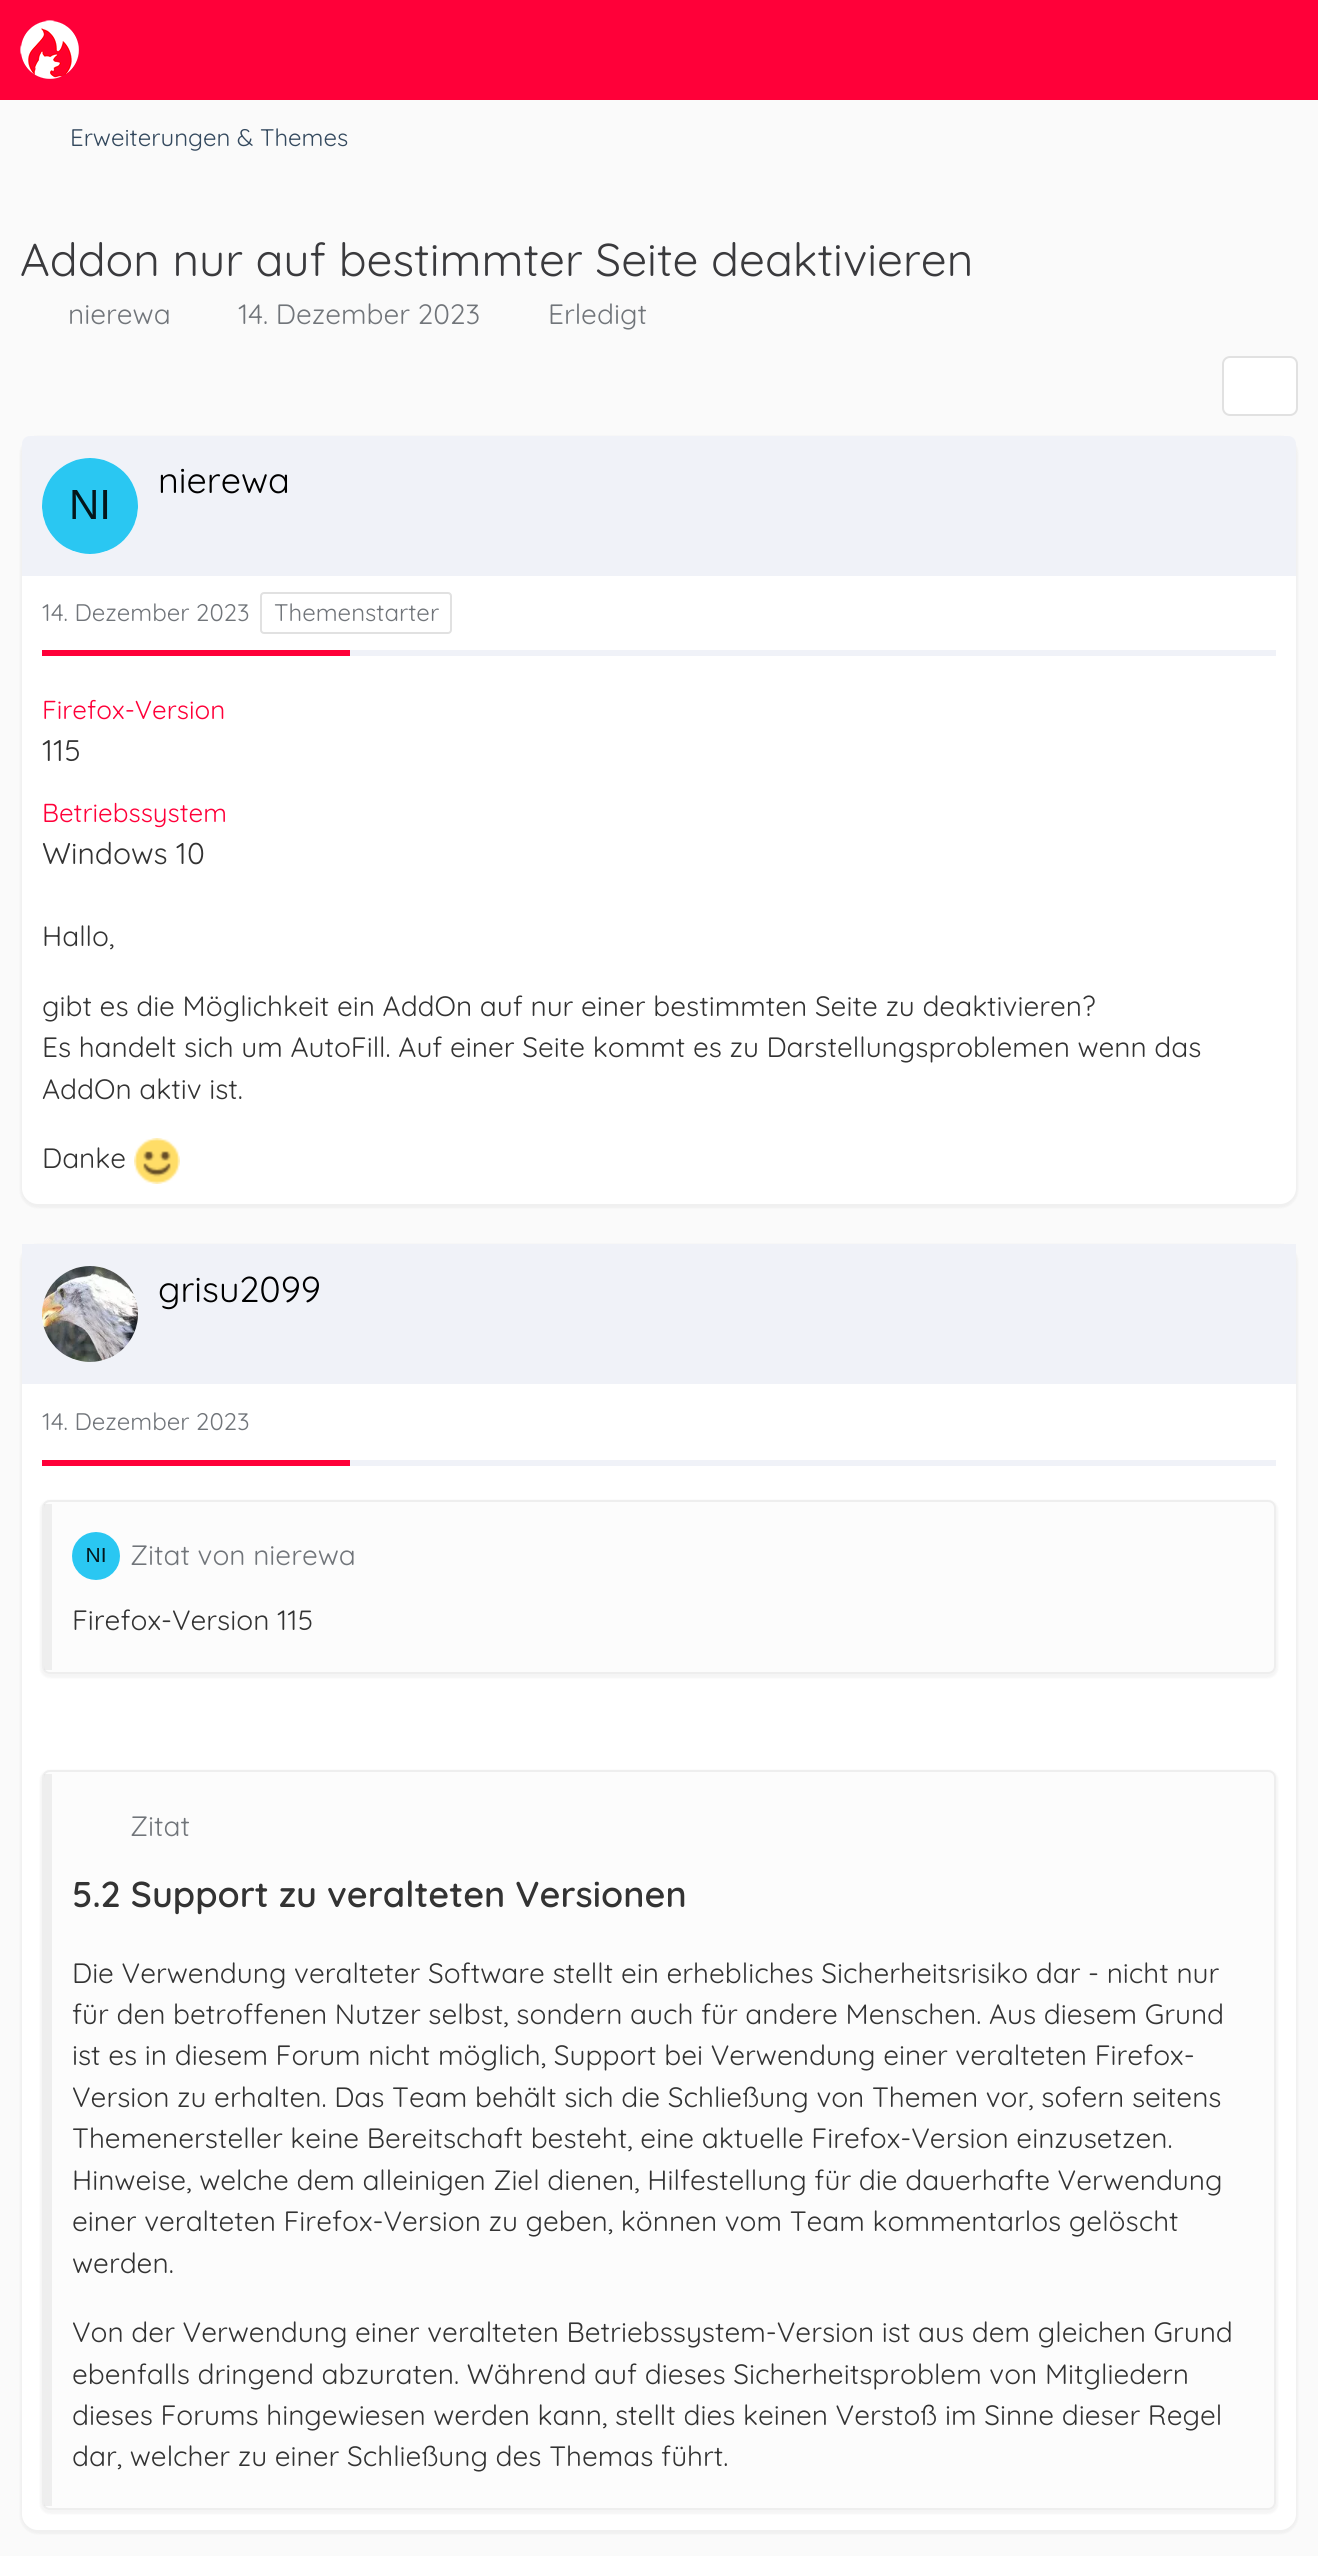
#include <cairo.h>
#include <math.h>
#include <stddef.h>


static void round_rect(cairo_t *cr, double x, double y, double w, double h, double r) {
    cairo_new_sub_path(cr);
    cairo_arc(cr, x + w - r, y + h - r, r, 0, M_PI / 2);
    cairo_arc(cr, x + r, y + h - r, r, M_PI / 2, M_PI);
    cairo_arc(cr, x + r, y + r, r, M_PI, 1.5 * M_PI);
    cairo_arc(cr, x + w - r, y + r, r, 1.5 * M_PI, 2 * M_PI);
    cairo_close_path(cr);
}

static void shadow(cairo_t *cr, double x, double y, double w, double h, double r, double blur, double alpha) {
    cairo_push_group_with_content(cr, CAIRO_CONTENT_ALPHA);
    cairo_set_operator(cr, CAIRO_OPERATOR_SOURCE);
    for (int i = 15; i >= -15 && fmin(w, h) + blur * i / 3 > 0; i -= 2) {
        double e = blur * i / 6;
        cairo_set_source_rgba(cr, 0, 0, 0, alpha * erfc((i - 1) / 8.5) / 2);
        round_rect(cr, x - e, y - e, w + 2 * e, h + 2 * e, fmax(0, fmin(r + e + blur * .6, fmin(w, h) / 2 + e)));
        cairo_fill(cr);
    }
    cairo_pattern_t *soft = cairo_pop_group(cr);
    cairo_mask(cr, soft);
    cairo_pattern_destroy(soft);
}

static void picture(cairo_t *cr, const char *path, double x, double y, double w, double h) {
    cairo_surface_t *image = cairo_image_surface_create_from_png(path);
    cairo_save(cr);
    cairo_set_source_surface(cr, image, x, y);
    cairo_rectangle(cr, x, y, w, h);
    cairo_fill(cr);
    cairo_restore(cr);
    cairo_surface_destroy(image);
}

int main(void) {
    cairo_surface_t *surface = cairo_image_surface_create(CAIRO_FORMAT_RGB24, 1318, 2556);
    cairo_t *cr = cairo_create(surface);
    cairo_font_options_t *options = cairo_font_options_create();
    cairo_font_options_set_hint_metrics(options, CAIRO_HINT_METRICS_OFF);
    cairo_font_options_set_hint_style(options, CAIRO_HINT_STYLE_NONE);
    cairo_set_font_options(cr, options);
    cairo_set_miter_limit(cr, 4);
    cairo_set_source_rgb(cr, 0.98, 0.98, 0.98);
    cairo_paint(cr);
    cairo_set_source_rgb(cr, 1, 0, 0.224);
    cairo_rectangle(cr, 0, 0, 1318, 100);
    cairo_fill(cr);
    picture(cr, "img1.png", 20, 20, 59, 59);
    cairo_select_font_face(cr, "Quicksand Light", CAIRO_FONT_SLANT_NORMAL, CAIRO_FONT_WEIGHT_NORMAL);
    cairo_set_font_size(cr, 24);
    cairo_set_source_rgb(cr, 0.204, 0.286, 0.369);
    cairo_move_to(cr, 70, 146);
    cairo_show_text(cr, "Erweiterungen & Themes");
    cairo_set_font_size(cr, 46);
    cairo_set_source_rgb(cr, 0.227, 0.227, 0.239);
    cairo_move_to(cr, 20, 276);
    cairo_show_text(cr, "Addon nur auf bestimmter Seite deaktivieren");
    cairo_set_font_size(cr, 28);
    cairo_set_source_rgb(cr, 0.443, 0.459, 0.478);
    cairo_move_to(cr, 68, 324);
    cairo_show_text(cr, "nierewa");
    cairo_move_to(cr, 238, 324);
    cairo_show_text(cr, "14. Dezember 2023");
    cairo_move_to(cr, 548, 324);
    cairo_show_text(cr, "Erledigt");
    cairo_set_source_rgb(cr, 1, 1, 1);
    round_rect(cr, 1223, 357, 74, 58, 7);
    cairo_fill_preserve(cr);
    cairo_set_source_rgb(cr, 0.882, 0.882, 0.882);
    cairo_stroke(cr);
    cairo_set_source_rgb(cr, 0, 0, 0);
    shadow(cr, 20, 436, 1278, 772, 18, 1, 0.04);
    cairo_set_source_rgb(cr, 1, 1, 1);
    round_rect(cr, 22, 436, 1274, 768, 16);
    cairo_fill(cr);
    cairo_set_source_rgb(cr, 0.941, 0.949, 0.969);
    cairo_new_path(cr);
    cairo_move_to(cr, 30, 436);
    cairo_line_to(cr, 1288, 436);
    cairo_curve_to(cr, 1292.5, 436, 1296, 439.5, 1296, 444);
    cairo_line_to(cr, 1296, 576);
    cairo_line_to(cr, 22, 576);
    cairo_line_to(cr, 22, 444);
    cairo_curve_to(cr, 22, 439.5, 25.5, 436, 30, 436);
    cairo_close_path(cr);
    cairo_fill(cr);
    cairo_set_source_rgb(cr, 1, 1, 1);
    cairo_arc(cr, 90, 506, 48, 0, 2 * M_PI);
    cairo_fill(cr);
    picture(cr, "img2.png", 42, 458, 96, 96);
    cairo_set_font_size(cr, 36);
    cairo_set_source_rgb(cr, 0, 0, 0);
    cairo_move_to(cr, 158, 493);
    cairo_show_text(cr, "nierewa");
    cairo_set_font_size(cr, 24);
    cairo_set_source_rgb(cr, 0.443, 0.459, 0.478);
    cairo_move_to(cr, 42, 621);
    cairo_show_text(cr, "14. Dezember 2023");
    round_rect(cr, 261, 593, 190, 40, 3);
    cairo_set_source_rgb(cr, 0.882, 0.882, 0.882);
    cairo_stroke(cr);
    cairo_set_source_rgb(cr, 0.443, 0.459, 0.478);
    cairo_move_to(cr, 274, 621);
    cairo_show_text(cr, "Themenstarter");
    cairo_set_source_rgb(cr, 1, 0, 0.224);
    cairo_rectangle(cr, 42, 650, 308, 6);
    cairo_fill(cr);
    cairo_set_source_rgb(cr, 0.941, 0.949, 0.969);
    cairo_rectangle(cr, 350, 650, 926, 6);
    cairo_fill(cr);
    cairo_set_font_size(cr, 26);
    cairo_set_source_rgb(cr, 1, 0, 0.224);
    cairo_move_to(cr, 42, 719);
    cairo_show_text(cr, "Firefox-Version");
    cairo_set_font_size(cr, 30);
    cairo_set_source_rgb(cr, 0.2, 0.2, 0.2);
    cairo_move_to(cr, 42, 761);
    cairo_show_text(cr, "115");
    cairo_set_font_size(cr, 26);
    cairo_set_source_rgb(cr, 1, 0, 0.224);
    cairo_move_to(cr, 42, 822);
    cairo_show_text(cr, "Betriebssystem");
    cairo_set_font_size(cr, 30);
    cairo_set_source_rgb(cr, 0.2, 0.2, 0.2);
    cairo_move_to(cr, 42, 864);
    cairo_show_text(cr, "Windows 10");
    cairo_set_font_size(cr, 28);
    cairo_move_to(cr, 42, 946);
    cairo_show_text(cr, "Hallo,");
    cairo_move_to(cr, 42, 1016);
    cairo_show_text(cr, "gibt es die Möglichkeit ein AddOn auf nur einer bestimmten Seite zu deaktivieren?");
    cairo_move_to(cr, 42, 1057);
    cairo_show_text(cr, "Es handelt sich um AutoFill. Auf einer Seite kommt es zu Darstellungsproblemen wenn das");
    cairo_move_to(cr, 42, 1099);
    cairo_show_text(cr, "AddOn aktiv ist.");
    cairo_move_to(cr, 42, 1168);
    cairo_show_text(cr, "Danke");
    picture(cr, "img3.png", 134, 1138, 46, 46);
    cairo_set_source_rgb(cr, 0, 0, 0);
    shadow(cr, 20, 1244, 1278, 1290, 18, 1, 0.04);
    cairo_set_source_rgb(cr, 1, 1, 1);
    round_rect(cr, 22, 1244, 1274, 1286, 16);
    cairo_fill(cr);
    cairo_set_source_rgb(cr, 0.941, 0.949, 0.969);
    cairo_rectangle(cr, 22, 1244, 1274, 140);
    cairo_fill(cr);
    cairo_set_source_rgb(cr, 1, 1, 1);
    cairo_arc(cr, 90, 1314, 48, 0, 2 * M_PI);
    cairo_fill(cr);
    picture(cr, "img4.png", 42, 1266, 96, 96);
    cairo_set_font_size(cr, 36);
    cairo_set_source_rgb(cr, 0, 0, 0);
    cairo_move_to(cr, 158, 1302);
    cairo_show_text(cr, "grisu2099");
    cairo_set_font_size(cr, 24);
    cairo_set_source_rgb(cr, 0.443, 0.459, 0.478);
    cairo_move_to(cr, 42, 1430);
    cairo_show_text(cr, "14. Dezember 2023");
    cairo_set_source_rgb(cr, 1, 0, 0.224);
    cairo_rectangle(cr, 42, 1460, 308, 6);
    cairo_fill(cr);
    cairo_set_source_rgb(cr, 0.941, 0.949, 0.969);
    cairo_rectangle(cr, 350, 1460, 926, 6);
    cairo_fill(cr);
    cairo_set_source_rgb(cr, 0, 0, 0);
    shadow(cr, 40, 1500, 1238, 178, 10, 1, 0.04);
    cairo_set_source_rgb(cr, 0.988, 0.988, 0.988);
    round_rect(cr, 43, 1501, 1232, 172, 7);
    cairo_fill_preserve(cr);
    cairo_set_source_rgb(cr, 0.933, 0.933, 0.933);
    cairo_stroke(cr);
    cairo_set_source_rgba(cr, 0.882, 0.882, 0.882, 0.5);
    cairo_rectangle(cr, 44, 1504, 8, 166);
    cairo_fill(cr);
    picture(cr, "img5.png", 72, 1532, 48, 48);
    cairo_set_font_size(cr, 28);
    cairo_set_source_rgb(cr, 0.443, 0.459, 0.478);
    cairo_move_to(cr, 130, 1565);
    cairo_show_text(cr, "Zitat von nierewa");
    cairo_set_source_rgb(cr, 0.2, 0.2, 0.2);
    cairo_move_to(cr, 72, 1630);
    cairo_show_text(cr, "Firefox-Version 115");
    cairo_set_source_rgb(cr, 0, 0, 0);
    shadow(cr, 40, 1770, 1238, 744, 10, 1, 0.04);
    cairo_set_source_rgb(cr, 0.988, 0.988, 0.988);
    round_rect(cr, 43, 1771, 1232, 738, 7);
    cairo_fill_preserve(cr);
    cairo_set_source_rgb(cr, 0.933, 0.933, 0.933);
    cairo_stroke(cr);
    cairo_set_source_rgba(cr, 0.882, 0.882, 0.882, 0.5);
    cairo_rectangle(cr, 44, 1774, 8, 732);
    cairo_fill(cr);
    cairo_set_source_rgb(cr, 0.443, 0.459, 0.478);
    cairo_move_to(cr, 130, 1836);
    cairo_show_text(cr, "Zitat");
    cairo_select_font_face(cr, "Quicksand SemiBold", CAIRO_FONT_SLANT_NORMAL, CAIRO_FONT_WEIGHT_NORMAL);
    cairo_set_font_size(cr, 36);
    cairo_set_source_rgb(cr, 0.2, 0.2, 0.2);
    cairo_move_to(cr, 72, 1907);
    cairo_show_text(cr, "5.2 Support zu veralteten Versionen");
    cairo_select_font_face(cr, "Quicksand Light", CAIRO_FONT_SLANT_NORMAL, CAIRO_FONT_WEIGHT_NORMAL);
    cairo_set_font_size(cr, 28);
    cairo_move_to(cr, 72, 1983);
    cairo_show_text(cr, "Die Verwendung veralteter Software stellt ein erhebliches Sicherheitsrisiko dar - nicht nur");
    cairo_move_to(cr, 72, 2024);
    cairo_show_text(cr, "für den betroffenen Nutzer selbst, sondern auch für andere Menschen. Aus diesem Grund");
    cairo_move_to(cr, 72, 2065);
    cairo_show_text(cr, "ist es in diesem Forum nicht möglich, Support bei Verwendung einer veralteten Firefox-");
    cairo_move_to(cr, 72, 2107);
    cairo_show_text(cr, "Version zu erhalten. Das Team behält sich die Schließung von Themen vor, sofern seitens");
    cairo_move_to(cr, 72, 2148);
    cairo_show_text(cr, "Themenersteller keine Bereitschaft besteht, eine aktuelle Firefox-Version einzusetzen.");
    cairo_move_to(cr, 72, 2190);
    cairo_show_text(cr, "Hinweise, welche dem alleinigen Ziel dienen, Hilfestellung für die dauerhafte Verwendung");
    cairo_move_to(cr, 72, 2231);
    cairo_show_text(cr, "einer veralteten Firefox-Version zu geben, können vom Team kommentarlos gelöscht");
    cairo_move_to(cr, 72, 2273);
    cairo_show_text(cr, "werden.");
    cairo_move_to(cr, 72, 2342);
    cairo_show_text(cr, "Von der Verwendung einer veralteten Betriebssystem-Version ist aus dem gleichen Grund");
    cairo_move_to(cr, 72, 2384);
    cairo_show_text(cr, "ebenfalls dringend abzuraten. Während auf dieses Sicherheitsproblem von Mitgliedern");
    cairo_move_to(cr, 72, 2425);
    cairo_show_text(cr, "dieses Forums hingewiesen werden kann, stellt dies keinen Verstoß im Sinne dieser Regel");
    cairo_move_to(cr, 72, 2466);
    cairo_show_text(cr, "dar, welcher zu einer Schließung des Themas führt.");
    cairo_surface_write_to_png(surface, "page.png");
    cairo_font_options_destroy(options);
    cairo_destroy(cr);
    cairo_surface_destroy(surface);
    return 0;
}
